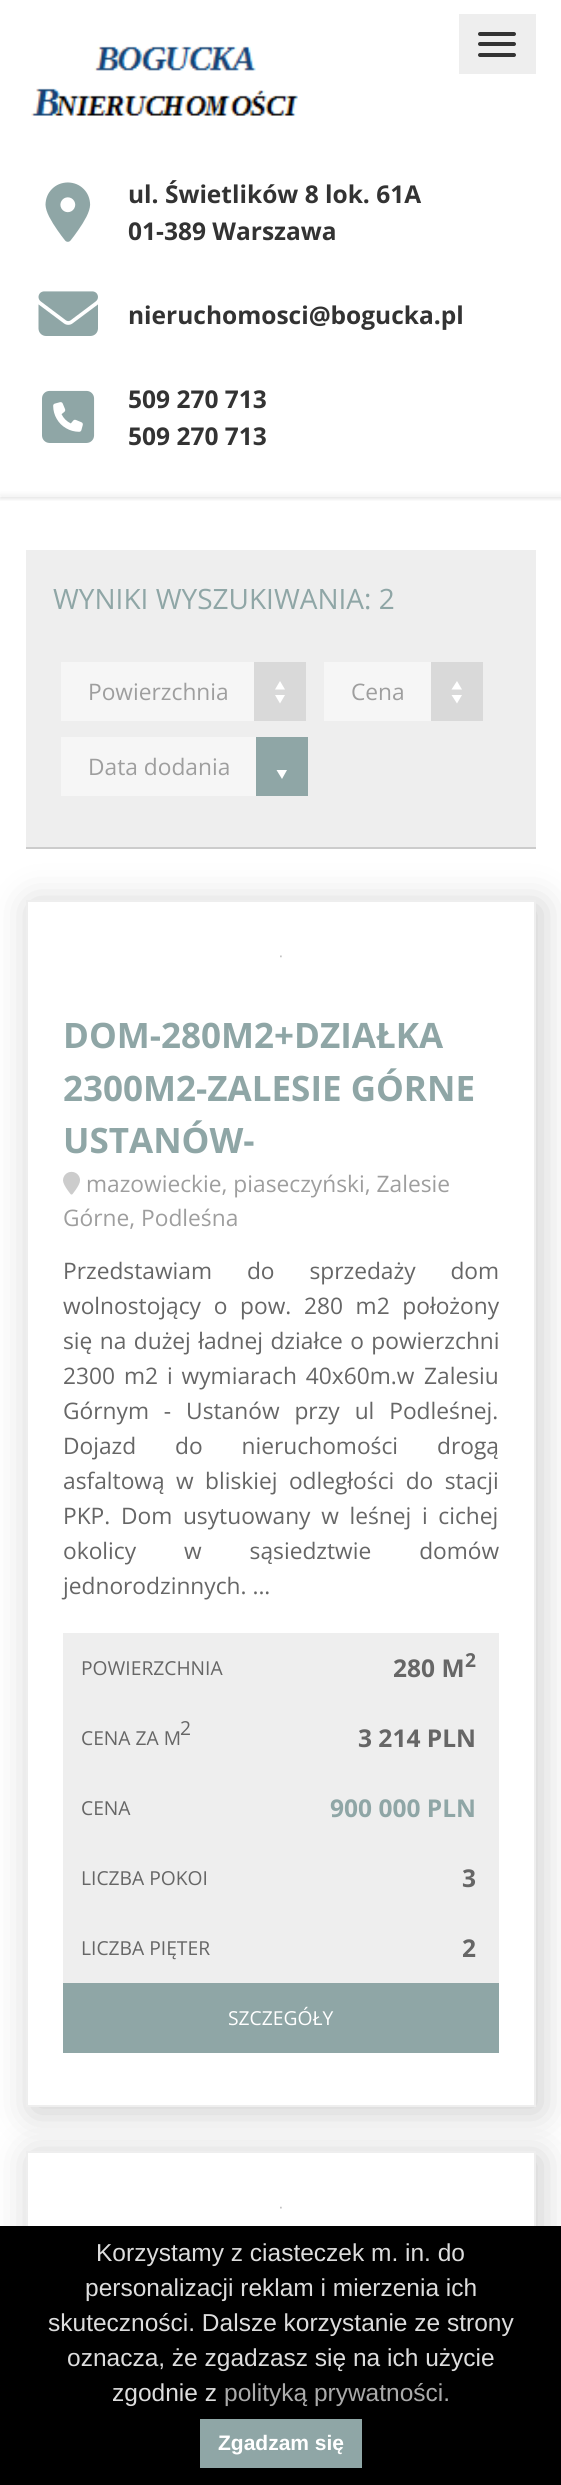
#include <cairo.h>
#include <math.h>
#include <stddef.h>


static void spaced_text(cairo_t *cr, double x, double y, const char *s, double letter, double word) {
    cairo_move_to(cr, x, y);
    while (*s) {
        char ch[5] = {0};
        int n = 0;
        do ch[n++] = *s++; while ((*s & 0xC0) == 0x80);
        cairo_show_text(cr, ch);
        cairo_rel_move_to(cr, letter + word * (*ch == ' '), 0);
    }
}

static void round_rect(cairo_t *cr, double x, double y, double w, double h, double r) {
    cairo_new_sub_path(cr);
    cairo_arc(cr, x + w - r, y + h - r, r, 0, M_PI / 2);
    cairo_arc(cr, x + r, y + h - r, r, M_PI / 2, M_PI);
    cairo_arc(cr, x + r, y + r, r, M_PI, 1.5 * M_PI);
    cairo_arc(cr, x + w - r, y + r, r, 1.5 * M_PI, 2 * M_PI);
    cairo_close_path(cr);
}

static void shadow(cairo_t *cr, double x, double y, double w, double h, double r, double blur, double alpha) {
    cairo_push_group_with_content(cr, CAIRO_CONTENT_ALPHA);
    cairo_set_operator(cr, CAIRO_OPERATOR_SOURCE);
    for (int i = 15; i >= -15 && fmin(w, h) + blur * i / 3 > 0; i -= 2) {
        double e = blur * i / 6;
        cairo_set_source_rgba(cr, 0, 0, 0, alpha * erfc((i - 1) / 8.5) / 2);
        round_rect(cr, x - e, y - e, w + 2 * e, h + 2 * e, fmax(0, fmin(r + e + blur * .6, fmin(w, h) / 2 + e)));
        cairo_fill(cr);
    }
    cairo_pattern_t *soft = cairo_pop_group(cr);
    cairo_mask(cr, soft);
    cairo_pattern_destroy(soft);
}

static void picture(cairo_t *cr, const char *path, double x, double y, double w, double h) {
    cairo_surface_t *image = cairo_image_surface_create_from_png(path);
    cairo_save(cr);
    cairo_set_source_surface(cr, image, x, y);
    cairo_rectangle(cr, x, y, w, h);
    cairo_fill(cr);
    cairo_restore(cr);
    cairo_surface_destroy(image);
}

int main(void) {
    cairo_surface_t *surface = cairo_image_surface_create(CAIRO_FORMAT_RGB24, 561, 2485);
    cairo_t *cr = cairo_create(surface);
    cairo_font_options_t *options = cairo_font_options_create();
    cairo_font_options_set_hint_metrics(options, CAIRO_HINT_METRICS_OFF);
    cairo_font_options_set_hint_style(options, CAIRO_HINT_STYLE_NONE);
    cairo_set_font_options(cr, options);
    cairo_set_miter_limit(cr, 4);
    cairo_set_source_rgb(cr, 1, 1, 1);
    cairo_paint(cr);
    cairo_set_source_rgb(cr, 0, 0, 0);
    shadow(cr, 0, 494, 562, 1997, 0, 2, 0.05);
    cairo_set_source_rgb(cr, 1, 1, 1);
    cairo_rectangle(cr, 0, 497, 561, 1729);
    cairo_fill(cr);
    cairo_save(cr);
    cairo_rectangle(cr, 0, 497, 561, 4);
    cairo_clip(cr);
    cairo_set_source_rgb(cr, 0, 0, 0);
    shadow(cr, 0, 2, 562, 497, 0, 2, 0.1);
    cairo_restore(cr);
    cairo_set_source_rgb(cr, 0.933, 0.933, 0.933);
    cairo_rectangle(cr, 459, 14, 77, 60);
    cairo_fill(cr);
    cairo_set_source_rgb(cr, 0.2, 0.2, 0.2);
    round_rect(cr, 478, 32, 38, 4, 2);
    cairo_fill(cr);
    round_rect(cr, 478, 42, 38, 4, 2);
    cairo_fill(cr);
    round_rect(cr, 478, 53, 38, 4, 2);
    cairo_fill(cr);
    picture(cr, "img1.png", 31, 46, 267, 70);
    picture(cr, "img2.png", 45, 182, 46, 60);
    cairo_select_font_face(cr, "Open Sans", CAIRO_FONT_SLANT_NORMAL, CAIRO_FONT_WEIGHT_BOLD);
    cairo_set_font_size(cr, 24.5);
    cairo_move_to(cr, 128, 203);
    cairo_show_text(cr, "ul. Świetlików 8 lok. 61A");
    cairo_move_to(cr, 128, 240);
    cairo_show_text(cr, "01-389 Warszawa");
    picture(cr, "img3.png", 38, 291, 60, 45);
    cairo_move_to(cr, 128, 324);
    cairo_show_text(cr, "nieruchomosci@bogucka.pl");
    picture(cr, "img4.png", 42, 390, 53, 53);
    cairo_move_to(cr, 128, 408);
    cairo_show_text(cr, "509 270 713");
    cairo_move_to(cr, 128, 445);
    cairo_show_text(cr, "509 270 713");
    cairo_set_source_rgb(cr, 0.8, 0.8, 0.8);
    cairo_new_path(cr);
    cairo_move_to(cr, 26, 551);
    cairo_line_to(cr, 26, 849);
    cairo_line_to(cr, 536, 849);
    cairo_line_to(cr, 536, 551);
    cairo_line_to(cr, 536, 847);
    cairo_line_to(cr, 26, 847);
    cairo_close_path(cr);
    cairo_fill(cr);
    cairo_set_source_rgb(cr, 0.933, 0.933, 0.933);
    cairo_rectangle(cr, 26, 550, 510, 297);
    cairo_fill(cr);
    cairo_select_font_face(cr, "Open Sans", CAIRO_FONT_SLANT_NORMAL, CAIRO_FONT_WEIGHT_NORMAL);
    cairo_set_font_size(cr, 28);
    cairo_set_source_rgb(cr, 0.561, 0.651, 0.651);
    cairo_move_to(cr, 53, 609);
    cairo_show_text(cr, "WYNIKI WYSZUKIWANIA: 2");
    cairo_set_source_rgb(cr, 0.961, 0.961, 0.961);
    cairo_rectangle(cr, 61, 662, 193, 59);
    cairo_fill(cr);
    cairo_set_font_size(cr, 22.75);
    cairo_set_source_rgb(cr, 0.62, 0.62, 0.62);
    cairo_move_to(cr, 88, 700);
    cairo_show_text(cr, "Powierzchnia");
    cairo_set_source_rgb(cr, 0.851, 0.851, 0.851);
    cairo_rectangle(cr, 254, 662, 52, 59);
    cairo_fill(cr);
    cairo_set_source_rgb(cr, 1, 1, 1);
    cairo_new_path(cr);
    cairo_move_to(cr, 285, 689.5);
    cairo_line_to(cr, 275, 689.5);
    cairo_line_to(cr, 280, 681);
    cairo_close_path(cr);
    cairo_move_to(cr, 275, 695);
    cairo_line_to(cr, 285, 695);
    cairo_line_to(cr, 280, 703.5);
    cairo_close_path(cr);
    cairo_fill(cr);
    cairo_set_source_rgb(cr, 0.961, 0.961, 0.961);
    cairo_rectangle(cr, 324, 662, 107, 59);
    cairo_fill(cr);
    cairo_set_source_rgb(cr, 0.62, 0.62, 0.62);
    cairo_move_to(cr, 351, 700);
    cairo_show_text(cr, "Cena");
    cairo_set_source_rgb(cr, 0.851, 0.851, 0.851);
    cairo_rectangle(cr, 431, 662, 52, 59);
    cairo_fill(cr);
    cairo_set_source_rgb(cr, 1, 1, 1);
    cairo_new_path(cr);
    cairo_move_to(cr, 462, 689.5);
    cairo_line_to(cr, 451.5, 689.5);
    cairo_line_to(cr, 457, 681);
    cairo_close_path(cr);
    cairo_move_to(cr, 451.5, 695);
    cairo_line_to(cr, 462, 695);
    cairo_line_to(cr, 457, 703.5);
    cairo_close_path(cr);
    cairo_fill(cr);
    cairo_set_source_rgb(cr, 0.961, 0.961, 0.961);
    cairo_rectangle(cr, 61, 737, 195, 59);
    cairo_fill(cr);
    cairo_set_source_rgb(cr, 0.62, 0.62, 0.62);
    cairo_move_to(cr, 88, 775);
    cairo_show_text(cr, "Data dodania");
    cairo_set_source_rgb(cr, 0.561, 0.651, 0.651);
    cairo_rectangle(cr, 256, 737, 52, 59);
    cairo_fill(cr);
    cairo_set_source_rgb(cr, 1, 1, 1);
    cairo_new_path(cr);
    cairo_move_to(cr, 276.5, 770);
    cairo_line_to(cr, 287, 770);
    cairo_line_to(cr, 282, 779);
    cairo_close_path(cr);
    cairo_fill(cr);
    cairo_set_source_rgb(cr, 0.8, 0.8, 0.8);
    shadow(cr, 32, 905, 509, 1207, 0, 19, 1);
    cairo_set_source_rgb(cr, 1, 1, 1);
    cairo_rectangle(cr, 27, 901, 508, 1205);
    cairo_fill_preserve(cr);
    cairo_set_source_rgb(cr, 0.933, 0.933, 0.933);
    cairo_stroke(cr);
    picture(cr, "img5.png", 280, 955, 2, 3);
    cairo_select_font_face(cr, "Open Sans", CAIRO_FONT_SLANT_NORMAL, CAIRO_FONT_WEIGHT_BOLD);
    cairo_set_font_size(cr, 35);
    cairo_set_source_rgb(cr, 0.561, 0.651, 0.651);
    cairo_move_to(cr, 63, 1048);
    cairo_show_text(cr, "DOM-280M2+DZIAŁKA");
    cairo_move_to(cr, 63, 1101);
    cairo_show_text(cr, "2300M2-ZALESIE GÓRNE");
    cairo_move_to(cr, 63, 1153);
    cairo_show_text(cr, "USTANÓW-");
    picture(cr, "img6.png", 63, 1171, 17, 24);
    cairo_select_font_face(cr, "Open Sans", CAIRO_FONT_SLANT_NORMAL, CAIRO_FONT_WEIGHT_NORMAL);
    cairo_set_font_size(cr, 22.75);
    cairo_set_source_rgb(cr, 0.62, 0.62, 0.62);
    cairo_move_to(cr, 86, 1192);
    cairo_show_text(cr, "mazowieckie, piaseczyński, Zalesie");
    cairo_move_to(cr, 63, 1226);
    cairo_show_text(cr, "Górne, Podleśna");
    cairo_set_source_rgb(cr, 0.4, 0.4, 0.4);
    spaced_text(cr, 63, 1279, "Przedstawiam do sprzedaży dom", 0, 29);
    spaced_text(cr, 63, 1314, "wolnostojący o pow. 280 m2 położony", 0, 6.75);
    spaced_text(cr, 63, 1349, "się na dużej ładnej działce o powierzchni", 0, 1.5);
    spaced_text(cr, 63, 1384, "2300 m2 i wymiarach 40x60m.w", 0, 3);
    cairo_move_to(cr, 424, 1384);
    cairo_show_text(cr, "Zalesiu");
    spaced_text(cr, 63, 1419, "Górnym - Ustanów przy ul Podleśnej.", 0, 9);
    spaced_text(cr, 63, 1454, "Dojazd do nieruchomości", 0, 33);
    cairo_move_to(cr, 437, 1454);
    cairo_show_text(cr, "drogą");
    spaced_text(cr, 63, 1489, "asfaltową w bliskiej odległości do stacji", 0, 5.5);
    cairo_move_to(cr, 63, 1524);
    cairo_show_text(cr, "PKP.");
    spaced_text(cr, 121, 1524, "Dom usytuowany w leśnej i cichej", 0, 4.75);
    spaced_text(cr, 63, 1559, "okolicy w sąsiedztwie domów", 0, 42);
    cairo_move_to(cr, 63, 1594);
    cairo_show_text(cr, "jednorodzinnych. ...");
    cairo_set_source_rgb(cr, 0.933, 0.933, 0.933);
    cairo_rectangle(cr, 63, 1633, 436, 350);
    cairo_fill(cr);
    cairo_set_font_size(cr, 19.25);
    cairo_set_source_rgb(cr, 0.4, 0.4, 0.4);
    cairo_move_to(cr, 81, 1675);
    cairo_show_text(cr, "POWIERZCHNIA");
    cairo_select_font_face(cr, "Open Sans", CAIRO_FONT_SLANT_NORMAL, CAIRO_FONT_WEIGHT_BOLD);
    cairo_set_font_size(cr, 24.5);
    cairo_move_to(cr, 393, 1677);
    cairo_show_text(cr, "280 M");
    cairo_set_font_size(cr, 19.25);
    cairo_move_to(cr, 465, 1667);
    cairo_show_text(cr, "2");
    cairo_select_font_face(cr, "Open Sans", CAIRO_FONT_SLANT_NORMAL, CAIRO_FONT_WEIGHT_NORMAL);
    cairo_move_to(cr, 81, 1745);
    cairo_show_text(cr, "CENA ZA M");
    cairo_move_to(cr, 180, 1735);
    cairo_show_text(cr, "2");
    cairo_select_font_face(cr, "Open Sans", CAIRO_FONT_SLANT_NORMAL, CAIRO_FONT_WEIGHT_BOLD);
    cairo_set_font_size(cr, 24.5);
    cairo_move_to(cr, 358, 1747);
    cairo_show_text(cr, "3 214 PLN");
    cairo_select_font_face(cr, "Open Sans", CAIRO_FONT_SLANT_NORMAL, CAIRO_FONT_WEIGHT_NORMAL);
    cairo_set_font_size(cr, 19.25);
    cairo_move_to(cr, 81, 1815);
    cairo_show_text(cr, "CENA");
    cairo_select_font_face(cr, "Open Sans", CAIRO_FONT_SLANT_NORMAL, CAIRO_FONT_WEIGHT_BOLD);
    cairo_set_font_size(cr, 24.5);
    cairo_set_source_rgb(cr, 0.561, 0.651, 0.651);
    cairo_move_to(cr, 330, 1817);
    cairo_show_text(cr, "900 000 PLN");
    cairo_select_font_face(cr, "Open Sans", CAIRO_FONT_SLANT_NORMAL, CAIRO_FONT_WEIGHT_NORMAL);
    cairo_set_font_size(cr, 19.25);
    cairo_set_source_rgb(cr, 0.4, 0.4, 0.4);
    cairo_move_to(cr, 81, 1885);
    cairo_show_text(cr, "LICZBA POKOI");
    cairo_select_font_face(cr, "Open Sans", CAIRO_FONT_SLANT_NORMAL, CAIRO_FONT_WEIGHT_BOLD);
    cairo_set_font_size(cr, 24.5);
    cairo_move_to(cr, 462, 1887);
    cairo_show_text(cr, "3");
    cairo_select_font_face(cr, "Open Sans", CAIRO_FONT_SLANT_NORMAL, CAIRO_FONT_WEIGHT_NORMAL);
    cairo_set_font_size(cr, 19.25);
    cairo_move_to(cr, 81, 1955);
    cairo_show_text(cr, "LICZBA PIĘTER");
    cairo_select_font_face(cr, "Open Sans", CAIRO_FONT_SLANT_NORMAL, CAIRO_FONT_WEIGHT_BOLD);
    cairo_set_font_size(cr, 24.5);
    cairo_move_to(cr, 462, 1957);
    cairo_show_text(cr, "2");
    cairo_set_source_rgb(cr, 0.561, 0.651, 0.651);
    cairo_rectangle(cr, 63, 1983, 436, 70);
    cairo_fill(cr);
    cairo_select_font_face(cr, "Open Sans", CAIRO_FONT_SLANT_NORMAL, CAIRO_FONT_WEIGHT_NORMAL);
    cairo_set_font_size(cr, 19.25);
    cairo_set_source_rgb(cr, 1, 1, 1);
    cairo_move_to(cr, 228, 2025);
    cairo_show_text(cr, "SZCZEGÓŁY");
    cairo_set_source_rgb(cr, 0.8, 0.8, 0.8);
    shadow(cr, 32, 2156, 509, 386, 0, 19, 1);
    cairo_set_source_rgb(cr, 1, 1, 1);
    cairo_rectangle(cr, 28, 2153, 506, 73);
    cairo_fill(cr);
    cairo_rectangle(cr, 27, 2152, 508, 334);
    cairo_set_source_rgb(cr, 0.933, 0.933, 0.933);
    cairo_stroke(cr);
    picture(cr, "img7.png", 280, 2206, 2, 3);
    cairo_set_source_rgb(cr, 0, 0, 0);
    cairo_rectangle(cr, 0, 2226, 561, 259);
    cairo_fill(cr);
    cairo_select_font_face(cr, "Liberation Sans", CAIRO_FONT_SLANT_NORMAL, CAIRO_FONT_WEIGHT_NORMAL);
    cairo_set_font_size(cr, 24.5);
    cairo_set_source_rgb(cr, 0.867, 0.867, 0.867);
    cairo_move_to(cr, 96, 2261);
    cairo_show_text(cr, "Korzystamy z ciasteczek m. in. do");
    cairo_move_to(cr, 85, 2296);
    cairo_show_text(cr, "personalizacji reklam i mierzenia ich");
    cairo_move_to(cr, 48, 2331);
    cairo_show_text(cr, "skuteczności. Dalsze korzystanie ze strony");
    cairo_move_to(cr, 67, 2366);
    cairo_show_text(cr, "oznacza, że zgadzasz się na ich użycie");
    cairo_move_to(cr, 112, 2401);
    cairo_show_text(cr, "zgodnie z");
    cairo_set_source_rgb(cr, 0.667, 0.667, 0.667);
    cairo_move_to(cr, 224, 2401);
    cairo_show_text(cr, "polityką prywatności.");
    cairo_set_source_rgb(cr, 0.561, 0.651, 0.651);
    cairo_rectangle(cr, 200, 2419, 162, 49);
    cairo_fill(cr);
    cairo_select_font_face(cr, "Liberation Sans", CAIRO_FONT_SLANT_NORMAL, CAIRO_FONT_WEIGHT_BOLD);
    cairo_set_font_size(cr, 21);
    cairo_set_source_rgb(cr, 1, 1, 1);
    cairo_move_to(cr, 218, 2450);
    cairo_show_text(cr, "Zgadzam się");
    cairo_surface_write_to_png(surface, "page.png");
    cairo_font_options_destroy(options);
    cairo_destroy(cr);
    cairo_surface_destroy(surface);
    return 0;
}
